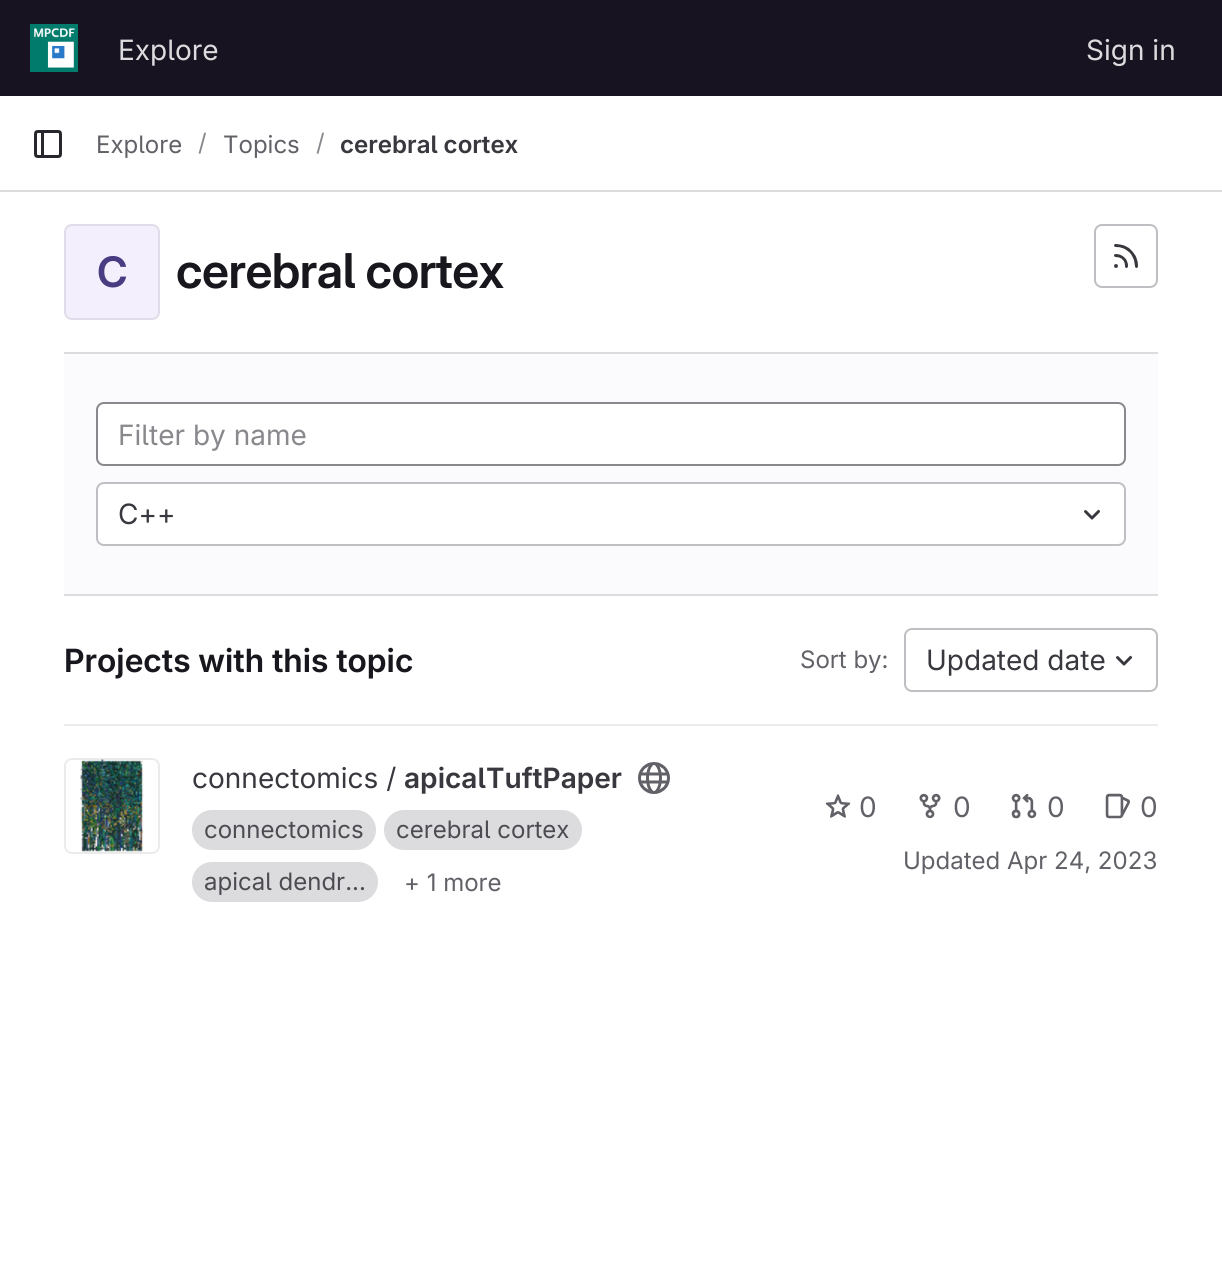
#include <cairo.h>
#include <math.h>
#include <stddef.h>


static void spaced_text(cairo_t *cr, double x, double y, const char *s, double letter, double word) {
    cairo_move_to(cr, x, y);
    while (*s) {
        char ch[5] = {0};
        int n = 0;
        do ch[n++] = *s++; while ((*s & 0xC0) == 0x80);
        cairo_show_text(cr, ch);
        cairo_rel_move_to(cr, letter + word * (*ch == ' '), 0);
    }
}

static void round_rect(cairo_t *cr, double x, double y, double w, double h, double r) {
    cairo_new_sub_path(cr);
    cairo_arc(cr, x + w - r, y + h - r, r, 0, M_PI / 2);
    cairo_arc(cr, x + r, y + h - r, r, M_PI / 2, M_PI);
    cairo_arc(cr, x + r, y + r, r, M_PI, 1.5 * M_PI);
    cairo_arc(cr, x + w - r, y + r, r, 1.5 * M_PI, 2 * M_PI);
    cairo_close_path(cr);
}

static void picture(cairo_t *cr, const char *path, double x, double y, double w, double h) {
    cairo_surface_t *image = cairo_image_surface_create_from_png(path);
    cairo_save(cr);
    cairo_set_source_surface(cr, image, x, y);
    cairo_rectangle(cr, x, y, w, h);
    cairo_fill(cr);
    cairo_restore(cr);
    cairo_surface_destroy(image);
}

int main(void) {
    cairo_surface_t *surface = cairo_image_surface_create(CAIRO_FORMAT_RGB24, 1222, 1286);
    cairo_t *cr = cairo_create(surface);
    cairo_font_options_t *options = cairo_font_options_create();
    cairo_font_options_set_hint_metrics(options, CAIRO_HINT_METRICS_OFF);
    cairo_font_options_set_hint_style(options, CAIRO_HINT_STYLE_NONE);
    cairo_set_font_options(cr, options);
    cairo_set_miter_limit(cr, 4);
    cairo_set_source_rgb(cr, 1, 1, 1);
    cairo_paint(cr);
    cairo_set_source_rgb(cr, 0.09, 0.075, 0.129);
    cairo_rectangle(cr, 0, 0, 1222, 96);
    cairo_fill(cr);
    picture(cr, "img1.png", 30, 24, 48, 48);
    cairo_select_font_face(cr, "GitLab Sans", CAIRO_FONT_SLANT_NORMAL, CAIRO_FONT_WEIGHT_NORMAL);
    cairo_set_font_size(cr, 28);
    cairo_set_source_rgb(cr, 0.863, 0.863, 0.871);
    cairo_move_to(cr, 118, 60);
    cairo_show_text(cr, "Explore");
    cairo_move_to(cr, 1086, 60);
    cairo_show_text(cr, "Sign in");
    cairo_rectangle(cr, 0, 190, 1222, 2);
    cairo_fill(cr);
    picture(cr, "img2.png", 34, 130, 28, 28);
    cairo_set_font_size(cr, 24);
    cairo_set_source_rgb(cr, 0.384, 0.38, 0.408);
    cairo_move_to(cr, 96, 153);
    cairo_show_text(cr, "Explore");
    cairo_set_source_rgb(cr, 0.537, 0.533, 0.553);
    cairo_move_to(cr, 198, 151);
    cairo_show_text(cr, "/");
    cairo_set_source_rgb(cr, 0.384, 0.38, 0.408);
    cairo_move_to(cr, 223, 153);
    cairo_show_text(cr, "Topics");
    cairo_set_source_rgb(cr, 0.537, 0.533, 0.553);
    cairo_move_to(cr, 316, 151);
    cairo_show_text(cr, "/");
    cairo_select_font_face(cr, "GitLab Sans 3 SemiBold", CAIRO_FONT_SLANT_NORMAL, CAIRO_FONT_WEIGHT_NORMAL);
    cairo_set_source_rgb(cr, 0.227, 0.22, 0.247);
    cairo_move_to(cr, 340, 153);
    cairo_show_text(cr, "cerebral cortex");
    cairo_set_source_rgb(cr, 0.953, 0.937, 0.988);
    round_rect(cr, 64, 224, 96, 96, 8);
    cairo_fill(cr);
    round_rect(cr, 65, 225, 94, 94, 7);
    cairo_set_source_rgba(cr, 0.02, 0.02, 0.024, 0.08);
    cairo_stroke(cr);
    cairo_select_font_face(cr, "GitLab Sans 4 SemiBold", CAIRO_FONT_SLANT_NORMAL, CAIRO_FONT_WEIGHT_NORMAL);
    cairo_set_font_size(cr, 42);
    cairo_set_source_rgb(cr, 0.286, 0.235, 0.514);
    spaced_text(cr, 97, 287, "C", -0.5, 0);
    cairo_select_font_face(cr, "GitLab Sans SemiBold", CAIRO_FONT_SLANT_NORMAL, CAIRO_FONT_WEIGHT_NORMAL);
    cairo_set_font_size(cr, 48);
    cairo_set_source_rgb(cr, 0.094, 0.09, 0.114);
    spaced_text(cr, 176, 288, "cerebral cortex", -0.5, 0);
    round_rect(cr, 1095, 225, 62, 62, 7);
    cairo_set_source_rgb(cr, 0.749, 0.749, 0.765);
    cairo_stroke(cr);
    picture(cr, "img3.png", 1114, 244, 24, 24);
    cairo_set_source_rgb(cr, 0.984, 0.98, 0.992);
    cairo_rectangle(cr, 64, 354, 1094, 240);
    cairo_fill(cr);
    cairo_set_source_rgb(cr, 0.863, 0.863, 0.871);
    cairo_rectangle(cr, 64, 352, 1094, 2);
    cairo_fill(cr);
    cairo_rectangle(cr, 64, 594, 1094, 2);
    cairo_fill(cr);
    cairo_set_source_rgb(cr, 1, 1, 1);
    round_rect(cr, 97, 403, 1028, 62, 7);
    cairo_fill_preserve(cr);
    cairo_set_source_rgb(cr, 0.537, 0.533, 0.553);
    cairo_stroke(cr);
    cairo_select_font_face(cr, "GitLab Sans", CAIRO_FONT_SLANT_NORMAL, CAIRO_FONT_WEIGHT_NORMAL);
    cairo_set_font_size(cr, 28);
    cairo_move_to(cr, 118, 445);
    cairo_show_text(cr, "Filter by name");
    cairo_set_source_rgb(cr, 1, 1, 1);
    round_rect(cr, 97, 483, 1028, 62, 7);
    cairo_fill_preserve(cr);
    cairo_set_source_rgb(cr, 0.749, 0.749, 0.765);
    cairo_stroke(cr);
    cairo_set_source_rgb(cr, 0.227, 0.22, 0.247);
    cairo_move_to(cr, 118, 524);
    cairo_show_text(cr, "C++");
    picture(cr, "img4.png", 1084, 509, 17, 11);
    cairo_set_source_rgb(cr, 0.925, 0.925, 0.937);
    cairo_rectangle(cr, 64, 724, 1094, 2);
    cairo_fill(cr);
    cairo_select_font_face(cr, "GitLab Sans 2 SemiBold", CAIRO_FONT_SLANT_NORMAL, CAIRO_FONT_WEIGHT_NORMAL);
    cairo_set_font_size(cr, 32);
    cairo_set_source_rgb(cr, 0.094, 0.09, 0.114);
    cairo_move_to(cr, 64, 672);
    cairo_show_text(cr, "Projects with this topic");
    cairo_select_font_face(cr, "GitLab Sans", CAIRO_FONT_SLANT_NORMAL, CAIRO_FONT_WEIGHT_NORMAL);
    cairo_set_font_size(cr, 24);
    cairo_set_source_rgb(cr, 0.384, 0.38, 0.408);
    cairo_move_to(cr, 800, 668);
    cairo_show_text(cr, "Sort by:");
    round_rect(cr, 905, 629, 252, 62, 7);
    cairo_set_source_rgb(cr, 0.749, 0.749, 0.765);
    cairo_stroke(cr);
    cairo_set_font_size(cr, 28);
    cairo_set_source_rgb(cr, 0.227, 0.22, 0.247);
    cairo_move_to(cr, 926, 670);
    cairo_show_text(cr, "Updated date");
    picture(cr, "img5.png", 1116, 655, 16, 11);
    picture(cr, "img6.png", 80, 759, 64, 93);
    round_rect(cr, 65, 759, 94, 94, 7);
    cairo_set_source_rgba(cr, 0.02, 0.02, 0.024, 0.08);
    cairo_stroke(cr);
    cairo_set_source_rgb(cr, 0.227, 0.22, 0.247);
    cairo_move_to(cr, 192, 788);
    cairo_show_text(cr, "connectomics /");
    cairo_select_font_face(cr, "GitLab Sans 3 SemiBold", CAIRO_FONT_SLANT_NORMAL, CAIRO_FONT_WEIGHT_NORMAL);
    cairo_move_to(cr, 404, 788);
    cairo_show_text(cr, "apicalTuftPaper");
    picture(cr, "img7.png", 638, 762, 32, 32);
    cairo_set_source_rgb(cr, 0.863, 0.863, 0.871);
    round_rect(cr, 192, 810, 184, 40, 20);
    cairo_fill(cr);
    cairo_select_font_face(cr, "GitLab Sans", CAIRO_FONT_SLANT_NORMAL, CAIRO_FONT_WEIGHT_NORMAL);
    cairo_set_font_size(cr, 24);
    cairo_set_source_rgb(cr, 0.298, 0.294, 0.318);
    cairo_move_to(cr, 204, 838);
    cairo_show_text(cr, "connectomics");
    cairo_set_source_rgb(cr, 0.863, 0.863, 0.871);
    round_rect(cr, 384, 810, 198, 40, 20);
    cairo_fill(cr);
    cairo_set_source_rgb(cr, 0.298, 0.294, 0.318);
    cairo_move_to(cr, 396, 838);
    cairo_show_text(cr, "cerebral cortex");
    cairo_set_source_rgb(cr, 0.863, 0.863, 0.871);
    round_rect(cr, 192, 862, 186, 40, 20);
    cairo_fill(cr);
    cairo_set_source_rgb(cr, 0.298, 0.294, 0.318);
    cairo_move_to(cr, 204, 890);
    cairo_show_text(cr, "apical dendr...");
    cairo_set_source_rgb(cr, 0.384, 0.38, 0.408);
    cairo_move_to(cr, 404, 891);
    cairo_show_text(cr, "+ 1 more");
    picture(cr, "img8.png", 825, 794, 26, 24);
    cairo_set_font_size(cr, 28);
    cairo_move_to(cr, 859, 817);
    cairo_show_text(cr, "0");
    picture(cr, "img9.png", 919, 793, 22, 26);
    cairo_move_to(cr, 953, 817);
    cairo_show_text(cr, "0");
    picture(cr, "img10.png", 1011, 793, 26, 26);
    cairo_move_to(cr, 1047, 817);
    cairo_show_text(cr, "0");
    picture(cr, "img11.png", 1105, 793, 25, 26);
    cairo_move_to(cr, 1140, 817);
    cairo_show_text(cr, "0");
    cairo_set_font_size(cr, 24);
    cairo_move_to(cr, 903, 869);
    cairo_show_text(cr, "Updated Apr 24, 2023");
    cairo_surface_write_to_png(surface, "page.png");
    cairo_font_options_destroy(options);
    cairo_destroy(cr);
    cairo_surface_destroy(surface);
    return 0;
}
